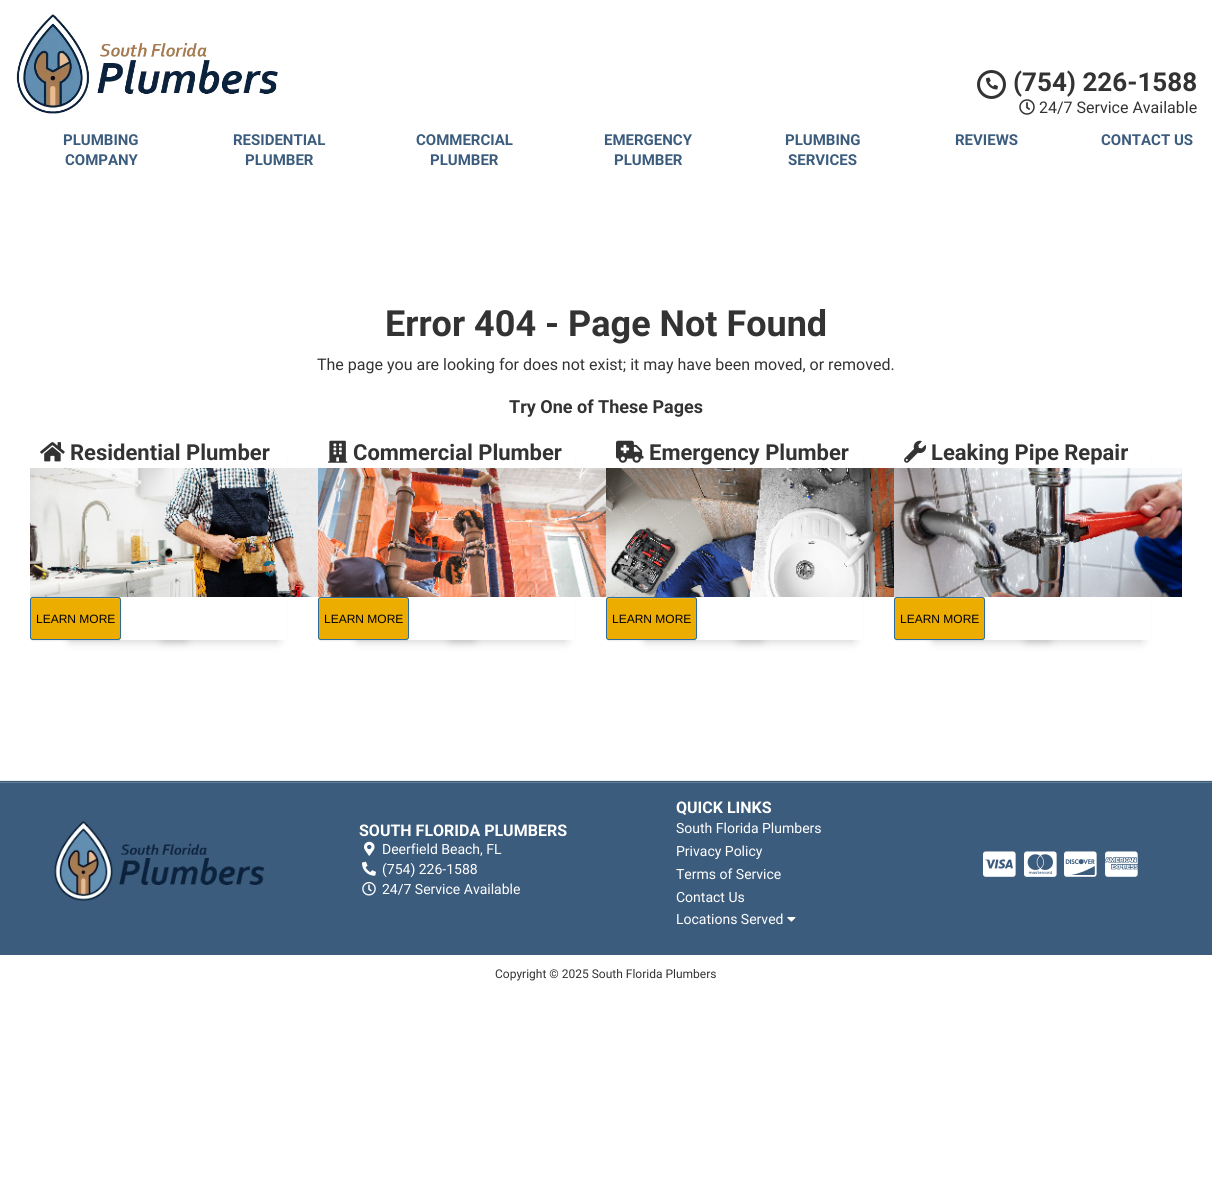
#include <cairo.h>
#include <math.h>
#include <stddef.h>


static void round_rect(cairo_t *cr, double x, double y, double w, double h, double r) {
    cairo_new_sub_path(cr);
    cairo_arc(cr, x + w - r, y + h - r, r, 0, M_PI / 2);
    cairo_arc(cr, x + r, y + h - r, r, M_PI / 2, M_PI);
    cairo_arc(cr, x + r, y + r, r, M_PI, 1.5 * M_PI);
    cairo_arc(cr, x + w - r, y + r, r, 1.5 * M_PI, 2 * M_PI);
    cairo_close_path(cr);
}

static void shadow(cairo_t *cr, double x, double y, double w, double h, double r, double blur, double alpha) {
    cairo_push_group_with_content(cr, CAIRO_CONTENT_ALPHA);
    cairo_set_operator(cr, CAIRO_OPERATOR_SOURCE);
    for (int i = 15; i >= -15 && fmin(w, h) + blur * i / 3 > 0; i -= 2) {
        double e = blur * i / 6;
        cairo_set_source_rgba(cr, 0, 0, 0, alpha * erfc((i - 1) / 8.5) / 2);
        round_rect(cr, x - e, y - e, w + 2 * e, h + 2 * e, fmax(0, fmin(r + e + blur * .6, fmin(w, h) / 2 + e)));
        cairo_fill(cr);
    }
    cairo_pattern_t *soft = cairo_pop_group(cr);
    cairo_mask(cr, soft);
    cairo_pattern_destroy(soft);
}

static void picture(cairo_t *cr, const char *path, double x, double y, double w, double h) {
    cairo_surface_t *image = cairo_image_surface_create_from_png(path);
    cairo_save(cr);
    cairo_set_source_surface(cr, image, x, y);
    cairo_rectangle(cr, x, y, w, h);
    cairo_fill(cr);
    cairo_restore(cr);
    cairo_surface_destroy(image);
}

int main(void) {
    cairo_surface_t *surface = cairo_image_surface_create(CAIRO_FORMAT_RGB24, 1212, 1184);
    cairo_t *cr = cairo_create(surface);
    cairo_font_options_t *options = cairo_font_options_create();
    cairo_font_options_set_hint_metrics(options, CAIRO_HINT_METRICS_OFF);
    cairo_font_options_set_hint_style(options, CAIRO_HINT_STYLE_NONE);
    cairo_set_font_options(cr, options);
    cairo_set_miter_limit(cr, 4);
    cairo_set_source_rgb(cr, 1, 1, 1);
    cairo_paint(cr);
    picture(cr, "img1.png", 16, 14, 262, 100);
    cairo_arc(cr, 991.5, 84.5, 13, 0, 2 * M_PI);
    cairo_set_source_rgb(cr, 0.2, 0.2, 0.2);
    cairo_set_line_width(cr, 3);
    cairo_stroke(cr);
    picture(cr, "img2.png", 986, 77, 12, 13);
    cairo_select_font_face(cr, "Roboto", CAIRO_FONT_SLANT_NORMAL, CAIRO_FONT_WEIGHT_BOLD);
    cairo_set_font_size(cr, 26);
    cairo_move_to(cr, 1013, 91);
    cairo_show_text(cr, "(754) 226-1588");
    picture(cr, "img3.png", 1019, 99, 16, 16);
    cairo_select_font_face(cr, "Roboto", CAIRO_FONT_SLANT_NORMAL, CAIRO_FONT_WEIGHT_NORMAL);
    cairo_set_font_size(cr, 16);
    cairo_move_to(cr, 1039, 113);
    cairo_show_text(cr, "24/7 Service Available");
    cairo_select_font_face(cr, "Roboto", CAIRO_FONT_SLANT_NORMAL, CAIRO_FONT_WEIGHT_BOLD);
    cairo_set_font_size(cr, 15);
    cairo_set_source_rgb(cr, 0.235, 0.361, 0.49);
    cairo_move_to(cr, 63, 145);
    cairo_show_text(cr, "PLUMBING");
    cairo_move_to(cr, 65, 165);
    cairo_show_text(cr, "COMPANY");
    cairo_move_to(cr, 233, 145);
    cairo_show_text(cr, "RESIDENTIAL");
    cairo_move_to(cr, 245, 165);
    cairo_show_text(cr, "PLUMBER");
    cairo_move_to(cr, 416, 145);
    cairo_show_text(cr, "COMMERCIAL");
    cairo_move_to(cr, 430, 165);
    cairo_show_text(cr, "PLUMBER");
    cairo_move_to(cr, 604, 145);
    cairo_show_text(cr, "EMERGENCY");
    cairo_move_to(cr, 614, 165);
    cairo_show_text(cr, "PLUMBER");
    cairo_move_to(cr, 785, 145);
    cairo_show_text(cr, "PLUMBING");
    cairo_move_to(cr, 788, 165);
    cairo_show_text(cr, "SERVICES");
    cairo_move_to(cr, 955, 145);
    cairo_show_text(cr, "REVIEWS");
    cairo_move_to(cr, 1101, 145);
    cairo_show_text(cr, "CONTACT US");
    cairo_set_font_size(cr, 36);
    cairo_set_source_rgb(cr, 0.2, 0.2, 0.2);
    cairo_move_to(cr, 385, 336);
    cairo_show_text(cr, "Error 404 - Page Not Found");
    cairo_select_font_face(cr, "Roboto", CAIRO_FONT_SLANT_NORMAL, CAIRO_FONT_WEIGHT_NORMAL);
    cairo_set_font_size(cr, 16);
    cairo_move_to(cr, 317, 370);
    cairo_show_text(cr, "The page you are looking for does not exist; it may have been moved, or removed.");
    cairo_select_font_face(cr, "Roboto", CAIRO_FONT_SLANT_NORMAL, CAIRO_FONT_WEIGHT_BOLD);
    cairo_set_font_size(cr, 18);
    cairo_move_to(cr, 509, 413);
    cairo_show_text(cr, "Try One of These Pages");
    cairo_set_source_rgb(cr, 0, 0, 0);
    shadow(cr, 70, 454, 115, 187, 0, 5, 0.2);
    shadow(cr, 163, 454, 115, 187, 0, 5, 0.2);
    cairo_set_source_rgb(cr, 1, 1, 1);
    cairo_rectangle(cr, 62, 444, 224, 196);
    cairo_fill(cr);
    picture(cr, "img4.png", 40, 442, 25, 20);
    cairo_set_font_size(cr, 22);
    cairo_set_source_rgb(cr, 0.2, 0.2, 0.2);
    cairo_move_to(cr, 70, 460);
    cairo_show_text(cr, "Residential Plumber");
    cairo_set_source_rgb(cr, 0, 0, 0);
    shadow(cr, 30, 598, 91, 43, 3, 0.5, 0.07);
    cairo_set_source_rgb(cr, 0.922, 0.675, 0);
    round_rect(cr, 30, 597, 91, 43, 3);
    cairo_fill(cr);
    cairo_set_source_rgb(cr, 0.933, 0.722, 0.149);
    cairo_new_path(cr);
    cairo_move_to(cr, 33, 599);
    cairo_line_to(cr, 118, 599);
    cairo_curve_to(cr, 119, 599, 120, 600, 120, 601);
    cairo_curve_to(cr, 120, 594, 106, 598, 104, 598);
    cairo_line_to(cr, 47, 598);
    cairo_curve_to(cr, 45, 598, 31, 594, 31, 601);
    cairo_curve_to(cr, 31, 600, 32, 599, 33, 599);
    cairo_close_path(cr);
    cairo_fill(cr);
    picture(cr, "img5.png", 30, 468, 288, 129);
    round_rect(cr, 30.5, 597.5, 90, 42, 2.5);
    cairo_set_source_rgb(cr, 0.176, 0.424, 0.635);
    cairo_set_line_width(cr, 1);
    cairo_stroke(cr);
    cairo_select_font_face(cr, "Liberation Sans", CAIRO_FONT_SLANT_NORMAL, CAIRO_FONT_WEIGHT_NORMAL);
    cairo_set_font_size(cr, 12);
    cairo_set_source_rgb(cr, 0, 0, 0);
    cairo_move_to(cr, 36, 623);
    cairo_show_text(cr, "LEARN MORE");
    cairo_set_source_rgb(cr, 0, 0, 0);
    shadow(cr, 358, 454, 115, 187, 0, 5, 0.2);
    shadow(cr, 451, 454, 115, 187, 0, 5, 0.2);
    cairo_set_source_rgb(cr, 1, 1, 1);
    cairo_rectangle(cr, 350, 444, 224, 196);
    cairo_fill(cr);
    picture(cr, "img6.png", 328, 440, 20, 23);
    cairo_select_font_face(cr, "Roboto", CAIRO_FONT_SLANT_NORMAL, CAIRO_FONT_WEIGHT_BOLD);
    cairo_set_font_size(cr, 22);
    cairo_set_source_rgb(cr, 0.2, 0.2, 0.2);
    cairo_move_to(cr, 353, 460);
    cairo_show_text(cr, "Commercial Plumber");
    cairo_set_source_rgb(cr, 0, 0, 0);
    shadow(cr, 318, 598, 91, 43, 3, 0.5, 0.07);
    cairo_set_source_rgb(cr, 0.922, 0.675, 0);
    round_rect(cr, 318, 597, 91, 43, 3);
    cairo_fill(cr);
    cairo_set_source_rgb(cr, 0.933, 0.722, 0.149);
    cairo_new_path(cr);
    cairo_move_to(cr, 321, 599);
    cairo_line_to(cr, 406, 599);
    cairo_curve_to(cr, 407, 599, 408, 600, 408, 601);
    cairo_curve_to(cr, 408, 594, 394, 598, 392, 598);
    cairo_line_to(cr, 335, 598);
    cairo_curve_to(cr, 333, 598, 319, 594, 319, 601);
    cairo_curve_to(cr, 319, 600, 320, 599, 321, 599);
    cairo_close_path(cr);
    cairo_fill(cr);
    picture(cr, "img7.png", 318, 468, 288, 129);
    round_rect(cr, 318.5, 597.5, 90, 42, 2.5);
    cairo_set_source_rgb(cr, 0.176, 0.424, 0.635);
    cairo_stroke(cr);
    cairo_select_font_face(cr, "Liberation Sans", CAIRO_FONT_SLANT_NORMAL, CAIRO_FONT_WEIGHT_NORMAL);
    cairo_set_font_size(cr, 12);
    cairo_set_source_rgb(cr, 0, 0, 0);
    cairo_move_to(cr, 324, 623);
    cairo_show_text(cr, "LEARN MORE");
    cairo_set_source_rgb(cr, 0, 0, 0);
    shadow(cr, 646, 454, 115, 187, 0, 5, 0.2);
    shadow(cr, 739, 454, 115, 187, 0, 5, 0.2);
    cairo_set_source_rgb(cr, 1, 1, 1);
    cairo_rectangle(cr, 638, 444, 224, 196);
    cairo_fill(cr);
    picture(cr, "img8.png", 616, 440, 28, 23);
    cairo_select_font_face(cr, "Roboto", CAIRO_FONT_SLANT_NORMAL, CAIRO_FONT_WEIGHT_BOLD);
    cairo_set_font_size(cr, 22);
    cairo_set_source_rgb(cr, 0.2, 0.2, 0.2);
    cairo_move_to(cr, 649, 460);
    cairo_show_text(cr, "Emergency Plumber");
    cairo_set_source_rgb(cr, 0, 0, 0);
    shadow(cr, 606, 598, 91, 43, 3, 0.5, 0.07);
    cairo_set_source_rgb(cr, 0.922, 0.675, 0);
    round_rect(cr, 606, 597, 91, 43, 3);
    cairo_fill(cr);
    cairo_set_source_rgb(cr, 0.933, 0.722, 0.149);
    cairo_new_path(cr);
    cairo_move_to(cr, 609, 599);
    cairo_line_to(cr, 694, 599);
    cairo_curve_to(cr, 695, 599, 696, 600, 696, 601);
    cairo_curve_to(cr, 696, 594, 682, 598, 680, 598);
    cairo_line_to(cr, 623, 598);
    cairo_curve_to(cr, 621, 598, 607, 594, 607, 601);
    cairo_curve_to(cr, 607, 600, 608, 599, 609, 599);
    cairo_close_path(cr);
    cairo_fill(cr);
    picture(cr, "img9.png", 606, 468, 288, 129);
    round_rect(cr, 606.5, 597.5, 90, 42, 2.5);
    cairo_set_source_rgb(cr, 0.176, 0.424, 0.635);
    cairo_stroke(cr);
    cairo_select_font_face(cr, "Liberation Sans", CAIRO_FONT_SLANT_NORMAL, CAIRO_FONT_WEIGHT_NORMAL);
    cairo_set_font_size(cr, 12);
    cairo_set_source_rgb(cr, 0, 0, 0);
    cairo_move_to(cr, 612, 623);
    cairo_show_text(cr, "LEARN MORE");
    cairo_set_source_rgb(cr, 0, 0, 0);
    shadow(cr, 934, 454, 115, 187, 0, 5, 0.2);
    shadow(cr, 1027, 454, 115, 187, 0, 5, 0.2);
    cairo_set_source_rgb(cr, 1, 1, 1);
    cairo_rectangle(cr, 926, 444, 224, 196);
    cairo_fill(cr);
    picture(cr, "img10.png", 904, 440, 22, 23);
    cairo_select_font_face(cr, "Roboto", CAIRO_FONT_SLANT_NORMAL, CAIRO_FONT_WEIGHT_BOLD);
    cairo_set_font_size(cr, 22);
    cairo_set_source_rgb(cr, 0.2, 0.2, 0.2);
    cairo_move_to(cr, 931, 460);
    cairo_show_text(cr, "Leaking Pipe Repair");
    cairo_set_source_rgb(cr, 0, 0, 0);
    shadow(cr, 894, 598, 91, 43, 3, 0.5, 0.07);
    cairo_set_source_rgb(cr, 0.922, 0.675, 0);
    round_rect(cr, 894, 597, 91, 43, 3);
    cairo_fill(cr);
    cairo_set_source_rgb(cr, 0.933, 0.722, 0.149);
    cairo_new_path(cr);
    cairo_move_to(cr, 897, 599);
    cairo_line_to(cr, 982, 599);
    cairo_curve_to(cr, 983, 599, 984, 600, 984, 601);
    cairo_curve_to(cr, 984, 594, 970, 598, 968, 598);
    cairo_line_to(cr, 911, 598);
    cairo_curve_to(cr, 909, 598, 895, 594, 895, 601);
    cairo_curve_to(cr, 895, 600, 896, 599, 897, 599);
    cairo_close_path(cr);
    cairo_fill(cr);
    picture(cr, "img11.png", 894, 468, 288, 129);
    round_rect(cr, 894.5, 597.5, 90, 42, 2.5);
    cairo_set_source_rgb(cr, 0.176, 0.424, 0.635);
    cairo_stroke(cr);
    cairo_select_font_face(cr, "Liberation Sans", CAIRO_FONT_SLANT_NORMAL, CAIRO_FONT_WEIGHT_NORMAL);
    cairo_set_font_size(cr, 12);
    cairo_set_source_rgb(cr, 0, 0, 0);
    cairo_move_to(cr, 900, 623);
    cairo_show_text(cr, "LEARN MORE");
    cairo_set_source_rgb(cr, 0.925, 0.925, 0.925);
    cairo_rectangle(cr, 0, 780, 1212, 1);
    cairo_fill(cr);
    cairo_set_source_rgb(cr, 0.235, 0.361, 0.49);
    cairo_rectangle(cr, 0, 781, 1212, 174);
    cairo_fill(cr);
    cairo_set_source_rgb(cr, 0.388, 0.49, 0.592);
    cairo_rectangle(cr, 0, 782, 1212, 1);
    cairo_fill(cr);
    picture(cr, "img12.png", 54, 821, 211, 80);
    cairo_select_font_face(cr, "Roboto", CAIRO_FONT_SLANT_NORMAL, CAIRO_FONT_WEIGHT_BOLD);
    cairo_set_font_size(cr, 16);
    cairo_set_source_rgb(cr, 1, 1, 1);
    cairo_move_to(cr, 359, 836);
    cairo_show_text(cr, "SOUTH FLORIDA PLUMBERS");
    picture(cr, "img13.png", 364, 841, 11, 15);
    cairo_select_font_face(cr, "Roboto", CAIRO_FONT_SLANT_NORMAL, CAIRO_FONT_WEIGHT_NORMAL);
    cairo_set_font_size(cr, 14);
    cairo_move_to(cr, 382, 854);
    cairo_show_text(cr, "Deerfield Beach, FL");
    picture(cr, "img14.png", 362, 861, 14, 15);
    cairo_move_to(cr, 382, 874);
    cairo_show_text(cr, "(754) 226-1588");
    picture(cr, "img15.png", 362, 882, 14, 14);
    cairo_move_to(cr, 382, 894);
    cairo_show_text(cr, "24/7 Service Available");
    cairo_select_font_face(cr, "Roboto", CAIRO_FONT_SLANT_NORMAL, CAIRO_FONT_WEIGHT_BOLD);
    cairo_set_font_size(cr, 16);
    cairo_move_to(cr, 676, 813);
    cairo_show_text(cr, "QUICK LINKS");
    cairo_select_font_face(cr, "Roboto", CAIRO_FONT_SLANT_NORMAL, CAIRO_FONT_WEIGHT_NORMAL);
    cairo_set_font_size(cr, 14);
    cairo_move_to(cr, 676, 833);
    cairo_show_text(cr, "South Florida Plumbers");
    cairo_move_to(cr, 676, 856);
    cairo_show_text(cr, "Privacy Policy");
    cairo_move_to(cr, 676, 879);
    cairo_show_text(cr, "Terms of Service");
    cairo_move_to(cr, 676, 902);
    cairo_show_text(cr, "Contact Us");
    cairo_move_to(cr, 676, 924);
    cairo_show_text(cr, "Locations Served");
    picture(cr, "img16.png", 787, 917, 9, 5);
    picture(cr, "img17.png", 983, 851, 33, 26);
    picture(cr, "img18.png", 1024, 851, 33, 26);
    picture(cr, "img19.png", 1064, 851, 33, 26);
    picture(cr, "img20.png", 1105, 851, 33, 26);
    cairo_set_font_size(cr, 12);
    cairo_set_source_rgb(cr, 0.2, 0.2, 0.2);
    cairo_move_to(cr, 495, 978);
    cairo_show_text(cr, "Copyright © 2025 South Florida Plumbers");
    cairo_surface_write_to_png(surface, "page.png");
    cairo_font_options_destroy(options);
    cairo_destroy(cr);
    cairo_surface_destroy(surface);
    return 0;
}
